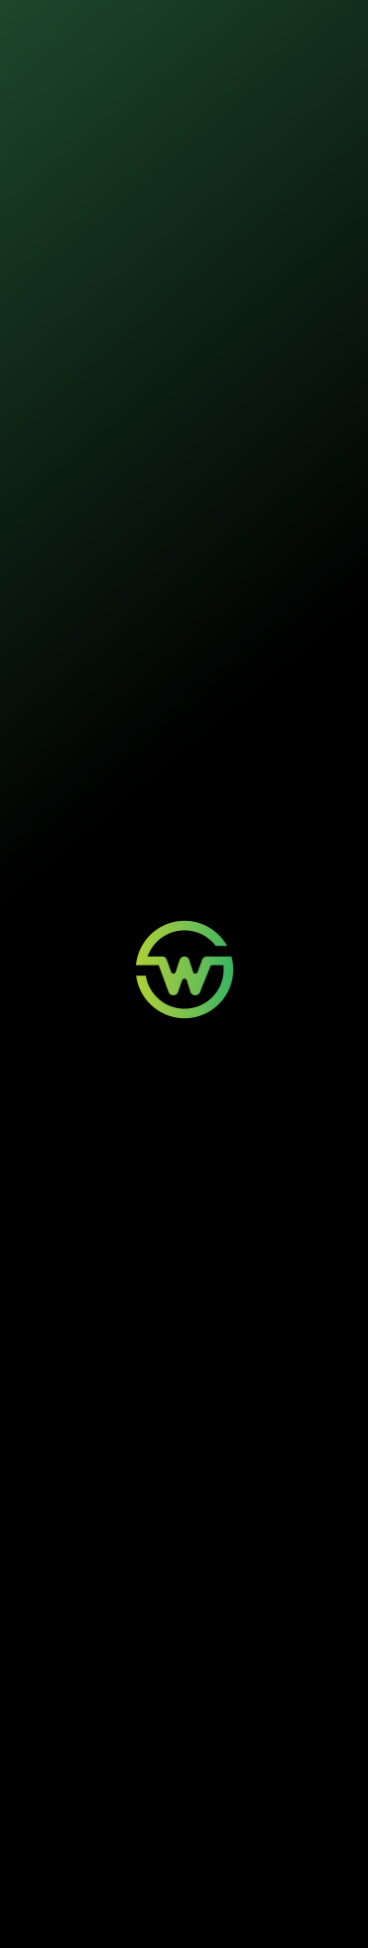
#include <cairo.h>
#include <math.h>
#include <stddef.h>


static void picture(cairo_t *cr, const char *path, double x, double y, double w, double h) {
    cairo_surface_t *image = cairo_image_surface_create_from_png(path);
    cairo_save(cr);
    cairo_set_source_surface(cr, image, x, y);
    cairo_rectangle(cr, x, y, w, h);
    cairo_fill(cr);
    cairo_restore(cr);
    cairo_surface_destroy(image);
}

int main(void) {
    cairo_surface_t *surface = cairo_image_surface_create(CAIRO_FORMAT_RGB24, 368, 1948);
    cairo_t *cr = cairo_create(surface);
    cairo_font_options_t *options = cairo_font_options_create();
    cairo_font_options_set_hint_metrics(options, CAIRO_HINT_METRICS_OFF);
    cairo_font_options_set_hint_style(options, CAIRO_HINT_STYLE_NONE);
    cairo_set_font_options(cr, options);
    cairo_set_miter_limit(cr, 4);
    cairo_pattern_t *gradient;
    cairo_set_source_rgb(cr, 1, 1, 1);
    cairo_paint(cr);
    gradient = cairo_pattern_create_linear(-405, 272, 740, 1636);
    cairo_pattern_add_color_stop_rgba(gradient, 0, 0.122, 0.298, 0.18, 1);
    cairo_pattern_add_color_stop_rgba(gradient, 0.42, 0, 0, 0, 1);
    cairo_set_source(cr, gradient);
    cairo_pattern_destroy(gradient);
    cairo_rectangle(cr, 0, 0, 368, 1948);
    cairo_fill(cr);
    picture(cr, "img1.png", 136, 920, 98, 99);
    cairo_surface_write_to_png(surface, "page.png");
    cairo_font_options_destroy(options);
    cairo_destroy(cr);
    cairo_surface_destroy(surface);
    return 0;
}
